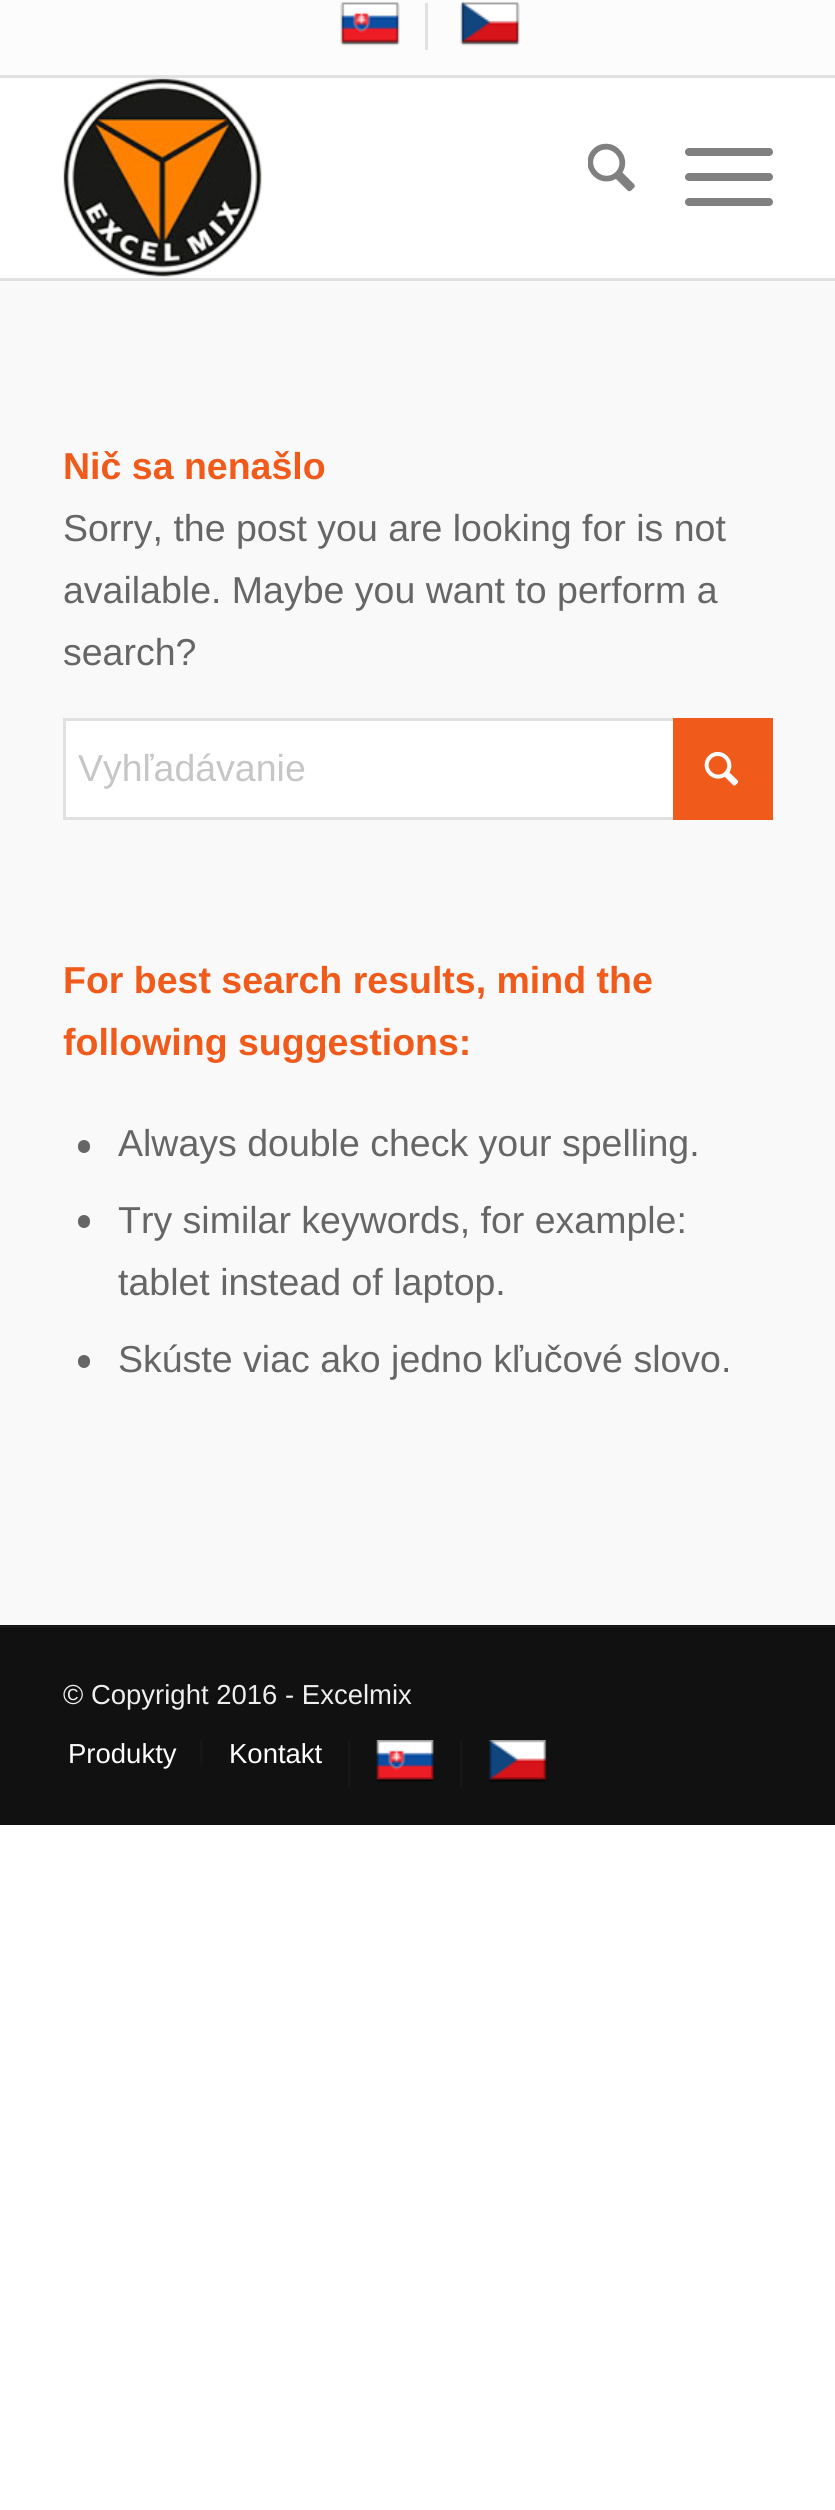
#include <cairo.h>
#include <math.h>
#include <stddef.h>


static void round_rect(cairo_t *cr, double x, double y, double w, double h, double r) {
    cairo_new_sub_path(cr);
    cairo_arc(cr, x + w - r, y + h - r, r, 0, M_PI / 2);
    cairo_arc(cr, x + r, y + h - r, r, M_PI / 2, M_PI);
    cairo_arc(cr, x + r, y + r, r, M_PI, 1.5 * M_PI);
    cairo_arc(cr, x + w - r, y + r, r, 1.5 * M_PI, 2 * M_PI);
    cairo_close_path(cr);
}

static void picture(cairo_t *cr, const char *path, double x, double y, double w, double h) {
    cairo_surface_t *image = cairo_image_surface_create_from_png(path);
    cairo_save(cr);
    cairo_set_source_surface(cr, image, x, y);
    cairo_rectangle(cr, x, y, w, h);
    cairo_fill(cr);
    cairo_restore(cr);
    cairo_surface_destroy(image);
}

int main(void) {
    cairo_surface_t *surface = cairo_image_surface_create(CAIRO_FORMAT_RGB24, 835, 2510);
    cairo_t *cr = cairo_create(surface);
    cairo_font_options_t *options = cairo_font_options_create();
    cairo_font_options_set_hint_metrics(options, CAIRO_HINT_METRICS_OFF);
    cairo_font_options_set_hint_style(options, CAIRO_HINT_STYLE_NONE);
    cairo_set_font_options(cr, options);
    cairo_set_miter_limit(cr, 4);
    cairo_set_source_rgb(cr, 1, 1, 1);
    cairo_paint(cr);
    cairo_set_source_rgb(cr, 0.988, 0.988, 0.988);
    cairo_rectangle(cr, 0, 0, 835, 75);
    cairo_fill(cr);
    cairo_set_source_rgb(cr, 0.882, 0.882, 0.882);
    cairo_rectangle(cr, 0, 75, 835, 3);
    cairo_fill(cr);
    cairo_rectangle(cr, 425, 3, 3, 47);
    cairo_fill(cr);
    picture(cr, "img1.png", 340, 2, 60, 44);
    picture(cr, "img2.png", 460, 2, 60, 44);
    cairo_rectangle(cr, 0, 278, 835, 3);
    cairo_fill(cr);
    picture(cr, "img3.png", 63, 78, 199, 199);
    picture(cr, "img4.png", 588, 143, 47, 49);
    cairo_set_source_rgb(cr, 0.502, 0.502, 0.502);
    round_rect(cr, 685, 173, 88, 8, 4);
    cairo_fill(cr);
    round_rect(cr, 685, 148, 88, 8, 4);
    cairo_fill(cr);
    round_rect(cr, 685, 198, 88, 8, 4);
    cairo_fill(cr);
    cairo_set_source_rgb(cr, 0.973, 0.973, 0.973);
    cairo_rectangle(cr, 0, 281, 835, 1344);
    cairo_fill(cr);
    cairo_select_font_face(cr, "Liberation Sans", CAIRO_FONT_SLANT_NORMAL, CAIRO_FONT_WEIGHT_BOLD);
    cairo_set_font_size(cr, 37.5);
    cairo_set_source_rgb(cr, 0.941, 0.353, 0.102);
    cairo_move_to(cr, 63, 479);
    cairo_show_text(cr, "Nič sa nenašlo");
    cairo_select_font_face(cr, "Liberation Sans", CAIRO_FONT_SLANT_NORMAL, CAIRO_FONT_WEIGHT_NORMAL);
    cairo_set_source_rgb(cr, 0.4, 0.4, 0.4);
    cairo_move_to(cr, 63, 541);
    cairo_show_text(cr, "Sorry, the post you are looking for is not");
    cairo_move_to(cr, 63, 603);
    cairo_show_text(cr, "available. Maybe you want to perform a");
    cairo_move_to(cr, 63, 665);
    cairo_show_text(cr, "search?");
    cairo_set_source_rgb(cr, 1, 1, 1);
    cairo_rectangle(cr, 66, 721, 607, 96);
    cairo_fill(cr);
    cairo_rectangle(cr, 64.5, 719.5, 707, 99);
    cairo_set_source_rgb(cr, 0.882, 0.882, 0.882);
    cairo_set_line_width(cr, 3);
    cairo_stroke(cr);
    cairo_set_source_rgb(cr, 0.941, 0.353, 0.102);
    cairo_rectangle(cr, 673, 718, 100, 102);
    cairo_fill(cr);
    cairo_set_source_rgb(cr, 0.776, 0.776, 0.776);
    cairo_move_to(cr, 78, 781);
    cairo_show_text(cr, "Vyhľadávanie");
    picture(cr, "img5.png", 704, 751, 35, 35);
    cairo_select_font_face(cr, "Liberation Sans", CAIRO_FONT_SLANT_NORMAL, CAIRO_FONT_WEIGHT_BOLD);
    cairo_set_source_rgb(cr, 0.941, 0.353, 0.102);
    cairo_move_to(cr, 63, 993);
    cairo_show_text(cr, "For best search results, mind the");
    cairo_move_to(cr, 63, 1055);
    cairo_show_text(cr, "following suggestions:");
    cairo_set_source_rgb(cr, 0.4, 0.4, 0.4);
    round_rect(cr, 78, 1140, 12, 13, 6);
    cairo_fill(cr);
    cairo_select_font_face(cr, "Liberation Sans", CAIRO_FONT_SLANT_NORMAL, CAIRO_FONT_WEIGHT_NORMAL);
    cairo_move_to(cr, 118, 1156);
    cairo_show_text(cr, "Always double check your spelling.");
    round_rect(cr, 78, 1215, 12, 13, 6);
    cairo_fill(cr);
    cairo_move_to(cr, 118, 1233);
    cairo_show_text(cr, "Try similar keywords, for example:");
    cairo_move_to(cr, 118, 1295);
    cairo_show_text(cr, "tablet instead of laptop.");
    round_rect(cr, 78, 1355, 12, 13, 6);
    cairo_fill(cr);
    cairo_move_to(cr, 118, 1372);
    cairo_show_text(cr, "Skúste viac ako jedno kľučové slovo.");
    cairo_set_source_rgb(cr, 0.067, 0.067, 0.067);
    cairo_rectangle(cr, 0, 1628, 835, 197);
    cairo_fill(cr);
    cairo_set_source_rgb(cr, 0.086, 0.086, 0.086);
    cairo_rectangle(cr, 0, 1625, 835, 3);
    cairo_fill(cr);
    cairo_set_font_size(cr, 27.5);
    cairo_set_source_rgb(cr, 0.933, 0.933, 0.933);
    cairo_move_to(cr, 63, 1704);
    cairo_show_text(cr, "© Copyright 2016 - Excelmix");
    cairo_set_source_rgb(cr, 1, 1, 1);
    cairo_move_to(cr, 68, 1763);
    cairo_show_text(cr, "Produkty");
    cairo_set_source_rgb(cr, 0.086, 0.086, 0.086);
    cairo_rectangle(cr, 200, 1740, 3, 25);
    cairo_fill(cr);
    cairo_set_source_rgb(cr, 1, 1, 1);
    cairo_move_to(cr, 229, 1763);
    cairo_show_text(cr, "Kontakt");
    cairo_set_source_rgb(cr, 0.086, 0.086, 0.086);
    cairo_rectangle(cr, 348, 1740, 3, 48);
    cairo_fill(cr);
    picture(cr, "img6.png", 376, 1740, 58, 42);
    cairo_rectangle(cr, 460, 1740, 3, 48);
    cairo_fill(cr);
    picture(cr, "img7.png", 489, 1740, 58, 42);
    cairo_surface_write_to_png(surface, "page.png");
    cairo_font_options_destroy(options);
    cairo_destroy(cr);
    cairo_surface_destroy(surface);
    return 0;
}
